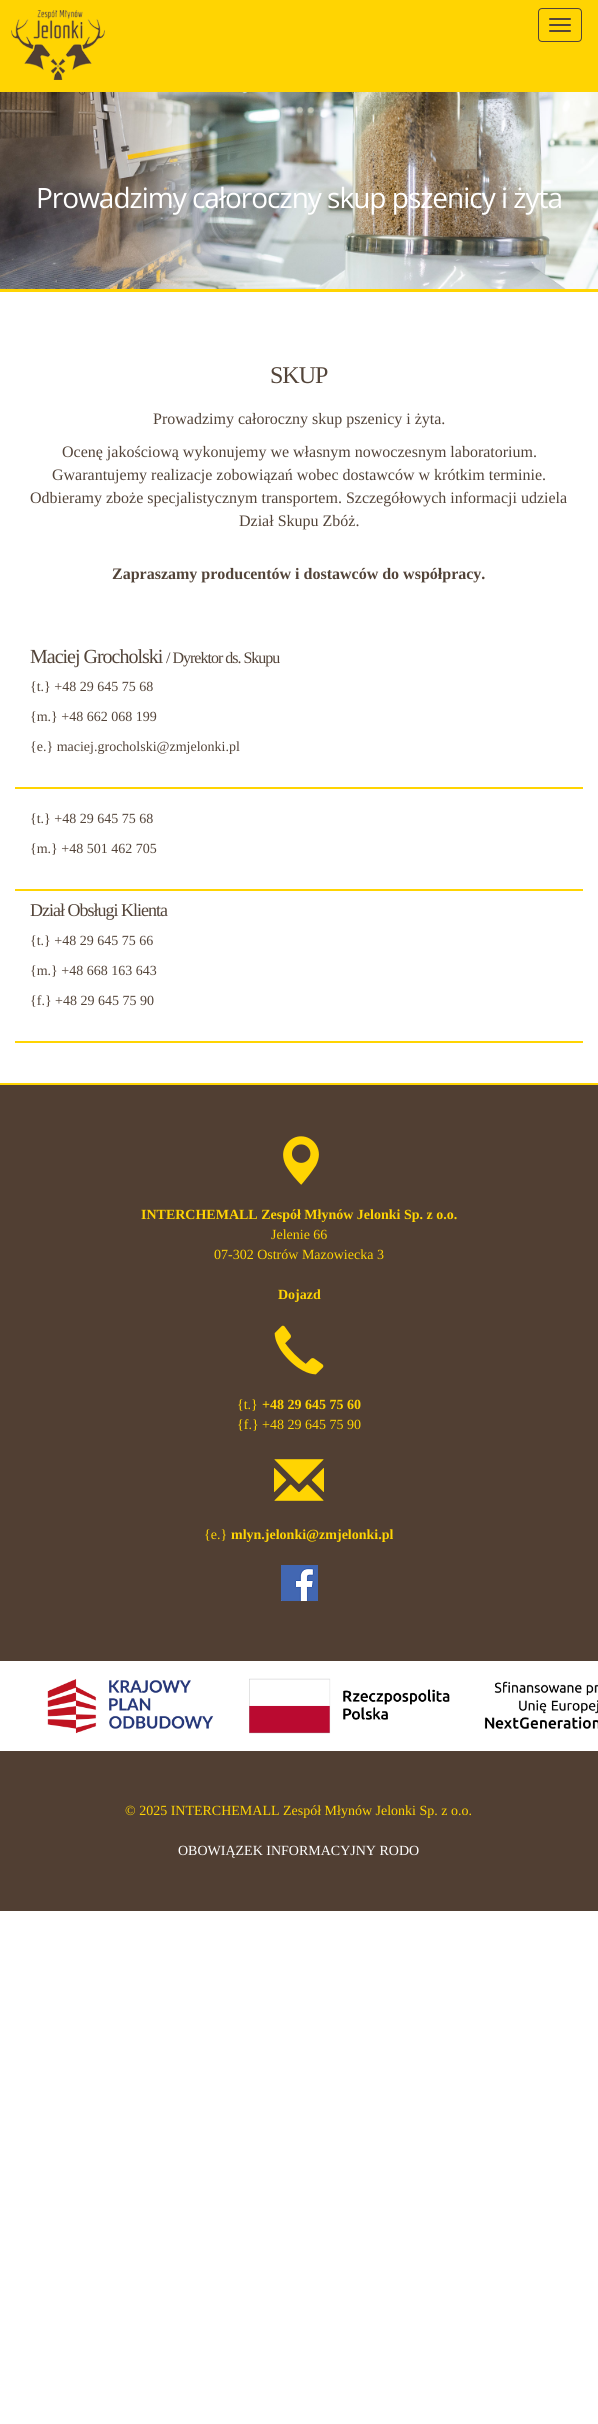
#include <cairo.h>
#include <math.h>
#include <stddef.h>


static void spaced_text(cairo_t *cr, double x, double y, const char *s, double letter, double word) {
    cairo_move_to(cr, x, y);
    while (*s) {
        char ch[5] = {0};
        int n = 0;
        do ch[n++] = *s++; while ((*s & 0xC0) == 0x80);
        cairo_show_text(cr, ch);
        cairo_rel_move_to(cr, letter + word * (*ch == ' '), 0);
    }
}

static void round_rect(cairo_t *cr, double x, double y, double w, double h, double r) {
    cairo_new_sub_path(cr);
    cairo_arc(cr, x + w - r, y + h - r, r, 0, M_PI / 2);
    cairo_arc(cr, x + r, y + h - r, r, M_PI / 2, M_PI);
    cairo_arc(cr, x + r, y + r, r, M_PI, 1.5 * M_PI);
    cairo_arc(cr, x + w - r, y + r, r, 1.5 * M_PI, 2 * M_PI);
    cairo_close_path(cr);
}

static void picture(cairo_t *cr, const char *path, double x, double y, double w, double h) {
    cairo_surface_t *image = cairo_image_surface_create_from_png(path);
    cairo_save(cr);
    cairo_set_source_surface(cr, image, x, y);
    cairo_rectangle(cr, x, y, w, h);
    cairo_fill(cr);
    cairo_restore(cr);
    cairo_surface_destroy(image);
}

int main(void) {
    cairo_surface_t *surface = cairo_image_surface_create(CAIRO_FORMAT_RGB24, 598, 2424);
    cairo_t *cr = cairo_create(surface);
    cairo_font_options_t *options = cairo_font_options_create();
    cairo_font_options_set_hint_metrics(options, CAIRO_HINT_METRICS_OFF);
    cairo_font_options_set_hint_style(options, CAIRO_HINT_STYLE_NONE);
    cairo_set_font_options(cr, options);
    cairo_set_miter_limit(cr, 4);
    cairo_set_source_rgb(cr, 1, 1, 1);
    cairo_paint(cr);
    cairo_set_source_rgb(cr, 1, 0.831, 0.008);
    cairo_rectangle(cr, 0, 0, 598, 92);
    cairo_fill(cr);
    picture(cr, "img1.png", 11, 10, 94, 70);
    round_rect(cr, 538.5, 8.5, 43, 33, 3.5);
    cairo_set_source_rgb(cr, 0.325, 0.267, 0.224);
    cairo_set_line_width(cr, 1);
    cairo_stroke(cr);
    round_rect(cr, 549, 18, 22, 2, 1);
    cairo_fill(cr);
    round_rect(cr, 549, 24, 22, 2, 1);
    cairo_fill(cr);
    round_rect(cr, 549, 30, 22, 2, 1);
    cairo_fill(cr);
    picture(cr, "img2.png", 0, 92, 598, 197);
    cairo_set_source_rgb(cr, 1, 0.831, 0.008);
    cairo_rectangle(cr, 0, 289, 598, 3);
    cairo_fill(cr);
    cairo_select_font_face(cr, "Open Sans", CAIRO_FONT_SLANT_NORMAL, CAIRO_FONT_WEIGHT_NORMAL);
    cairo_set_font_size(cr, 28);
    cairo_set_source_rgb(cr, 1, 1, 1);
    spaced_text(cr, 36, 208, "Prowadzimy całoroczny skup pszenicy i żyta", -1, 0);
    cairo_select_font_face(cr, "Liberation Serif", CAIRO_FONT_SLANT_NORMAL, CAIRO_FONT_WEIGHT_NORMAL);
    cairo_set_font_size(cr, 24);
    cairo_set_source_rgb(cr, 0.325, 0.267, 0.224);
    spaced_text(cr, 270, 383, "SKUP", -1, 0);
    cairo_set_font_size(cr, 16);
    cairo_move_to(cr, 153, 424);
    cairo_show_text(cr, "Prowadzimy całoroczny skup pszenicy i żyta.");
    cairo_move_to(cr, 62, 457);
    cairo_show_text(cr, "Ocenę jakościową wykonujemy we własnym nowoczesnym laboratorium.");
    cairo_move_to(cr, 52, 480);
    cairo_show_text(cr, "Gwarantujemy realizacje zobowiązań wobec dostawców w krótkim terminie.");
    cairo_move_to(cr, 30, 503);
    cairo_show_text(cr, "Odbieramy zboże specjalistycznym transportem. Szczegółowych informacji udziela");
    cairo_move_to(cr, 239, 526);
    cairo_show_text(cr, "Dział Skupu Zbóż.");
    cairo_select_font_face(cr, "Liberation Serif", CAIRO_FONT_SLANT_NORMAL, CAIRO_FONT_WEIGHT_BOLD);
    cairo_move_to(cr, 112, 579);
    cairo_show_text(cr, "Zapraszamy producentów i dostawców do współpracy.");
    cairo_set_source_rgb(cr, 1, 0.831, 0.008);
    cairo_rectangle(cr, 15, 787, 568, 2);
    cairo_fill(cr);
    cairo_select_font_face(cr, "Liberation Serif", CAIRO_FONT_SLANT_NORMAL, CAIRO_FONT_WEIGHT_NORMAL);
    cairo_set_font_size(cr, 20);
    cairo_set_source_rgb(cr, 0.325, 0.267, 0.224);
    spaced_text(cr, 30, 663, "Maciej Grocholski", -1, 0);
    cairo_set_font_size(cr, 16);
    spaced_text(cr, 166, 663, "/ Dyrektor ds. Skupu", -1, 0);
    cairo_set_font_size(cr, 14);
    cairo_move_to(cr, 30, 691);
    cairo_show_text(cr, "{t.} +48 29 645 75 68");
    cairo_move_to(cr, 30, 721);
    cairo_show_text(cr, "{m.} +48 662 068 199");
    cairo_move_to(cr, 30, 751);
    cairo_show_text(cr, "{e.} maciej.grocholski@zmjelonki.pl");
    cairo_set_source_rgb(cr, 1, 0.831, 0.008);
    cairo_rectangle(cr, 15, 889, 568, 2);
    cairo_fill(cr);
    cairo_set_source_rgb(cr, 0.325, 0.267, 0.224);
    cairo_move_to(cr, 30, 823);
    cairo_show_text(cr, "{t.} +48 29 645 75 68");
    cairo_move_to(cr, 30, 853);
    cairo_show_text(cr, "{m.} +48 501 462 705");
    cairo_set_source_rgb(cr, 1, 0.831, 0.008);
    cairo_rectangle(cr, 15, 1041, 568, 2);
    cairo_fill(cr);
    cairo_set_font_size(cr, 18);
    cairo_set_source_rgb(cr, 0.325, 0.267, 0.224);
    spaced_text(cr, 30, 916, "Dział Obsługi Klienta", -1, 0);
    cairo_set_font_size(cr, 14);
    cairo_move_to(cr, 30, 945);
    cairo_show_text(cr, "{t.} +48 29 645 75 66");
    cairo_move_to(cr, 30, 975);
    cairo_show_text(cr, "{m.} +48 668 163 643");
    cairo_move_to(cr, 30, 1005);
    cairo_show_text(cr, "{f.} +48 29 645 75 90");
    cairo_set_source_rgb(cr, 0.318, 0.247, 0.2);
    cairo_rectangle(cr, 0, 1085, 598, 576);
    cairo_fill(cr);
    cairo_set_source_rgb(cr, 1, 0.831, 0.008);
    cairo_rectangle(cr, 0, 1083, 598, 2);
    cairo_fill(cr);
    picture(cr, "img3.png", 283, 1136, 36, 49);
    cairo_select_font_face(cr, "Liberation Serif", CAIRO_FONT_SLANT_NORMAL, CAIRO_FONT_WEIGHT_BOLD);
    cairo_move_to(cr, 141, 1219);
    cairo_show_text(cr, "INTERCHEMALL Zespół Młynów Jelonki Sp. z o.o.");
    cairo_select_font_face(cr, "Liberation Serif", CAIRO_FONT_SLANT_NORMAL, CAIRO_FONT_WEIGHT_NORMAL);
    cairo_move_to(cr, 271, 1239);
    cairo_show_text(cr, "Jelenie 66");
    cairo_move_to(cr, 214, 1259);
    cairo_show_text(cr, "07-302 Ostrów Mazowiecka 3");
    cairo_select_font_face(cr, "Liberation Serif", CAIRO_FONT_SLANT_NORMAL, CAIRO_FONT_WEIGHT_BOLD);
    cairo_move_to(cr, 278, 1299);
    cairo_show_text(cr, "Dojazd");
    picture(cr, "img4.png", 274, 1325, 50, 50);
    cairo_select_font_face(cr, "Liberation Serif", CAIRO_FONT_SLANT_NORMAL, CAIRO_FONT_WEIGHT_NORMAL);
    cairo_move_to(cr, 237, 1409);
    cairo_show_text(cr, "{t.}");
    cairo_select_font_face(cr, "Liberation Serif", CAIRO_FONT_SLANT_NORMAL, CAIRO_FONT_WEIGHT_BOLD);
    cairo_move_to(cr, 262, 1409);
    cairo_show_text(cr, "+48 29 645 75 60");
    cairo_select_font_face(cr, "Liberation Serif", CAIRO_FONT_SLANT_NORMAL, CAIRO_FONT_WEIGHT_NORMAL);
    cairo_move_to(cr, 237, 1429);
    cairo_show_text(cr, "{f.} +48 29 645 75 90");
    picture(cr, "img5.png", 274, 1459, 50, 42);
    cairo_move_to(cr, 204, 1539);
    cairo_show_text(cr, "{e.}");
    cairo_select_font_face(cr, "Liberation Serif", CAIRO_FONT_SLANT_NORMAL, CAIRO_FONT_WEIGHT_BOLD);
    cairo_move_to(cr, 231, 1539);
    cairo_show_text(cr, "mlyn.jelonki@zmjelonki.pl");
    picture(cr, "img6.png", 281, 1565, 37, 36);
    picture(cr, "img7.png", 47, 1678, 551, 56);
    cairo_set_source_rgb(cr, 0.318, 0.247, 0.2);
    cairo_rectangle(cr, 0, 1751, 598, 160);
    cairo_fill(cr);
    cairo_select_font_face(cr, "Liberation Serif", CAIRO_FONT_SLANT_NORMAL, CAIRO_FONT_WEIGHT_NORMAL);
    cairo_set_source_rgb(cr, 1, 0.831, 0.008);
    cairo_move_to(cr, 125, 1815);
    cairo_show_text(cr, "© 2025 INTERCHEMALL Zespół Młynów Jelonki Sp. z o.o.");
    cairo_set_source_rgb(cr, 1, 1, 1);
    cairo_move_to(cr, 178, 1855);
    cairo_show_text(cr, "OBOWIĄZEK INFORMACYJNY RODO");
    cairo_surface_write_to_png(surface, "page.png");
    cairo_font_options_destroy(options);
    cairo_destroy(cr);
    cairo_surface_destroy(surface);
    return 0;
}
